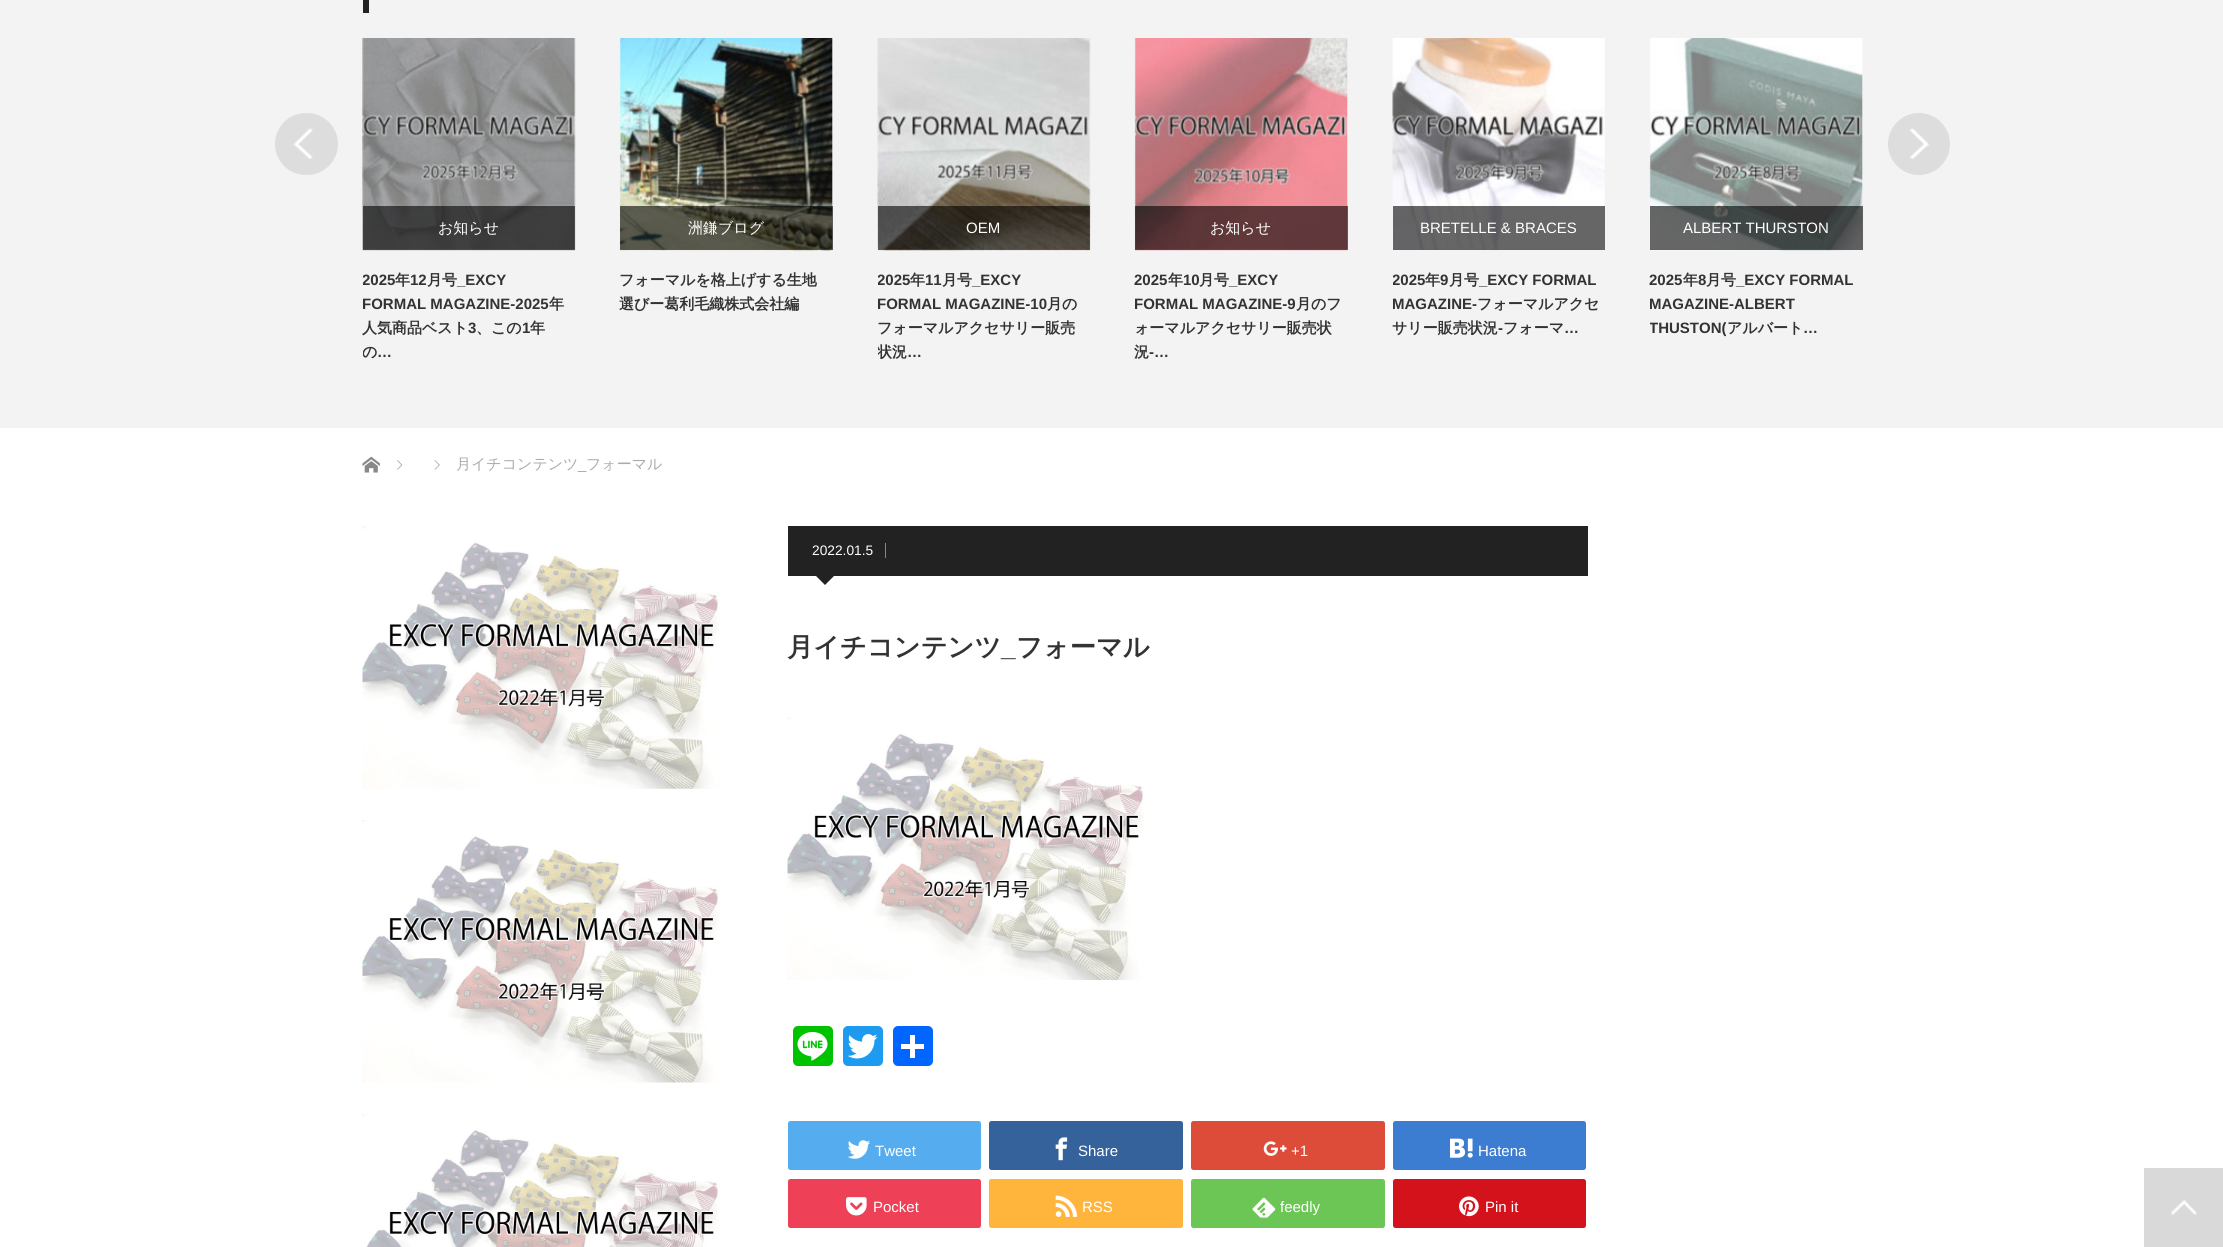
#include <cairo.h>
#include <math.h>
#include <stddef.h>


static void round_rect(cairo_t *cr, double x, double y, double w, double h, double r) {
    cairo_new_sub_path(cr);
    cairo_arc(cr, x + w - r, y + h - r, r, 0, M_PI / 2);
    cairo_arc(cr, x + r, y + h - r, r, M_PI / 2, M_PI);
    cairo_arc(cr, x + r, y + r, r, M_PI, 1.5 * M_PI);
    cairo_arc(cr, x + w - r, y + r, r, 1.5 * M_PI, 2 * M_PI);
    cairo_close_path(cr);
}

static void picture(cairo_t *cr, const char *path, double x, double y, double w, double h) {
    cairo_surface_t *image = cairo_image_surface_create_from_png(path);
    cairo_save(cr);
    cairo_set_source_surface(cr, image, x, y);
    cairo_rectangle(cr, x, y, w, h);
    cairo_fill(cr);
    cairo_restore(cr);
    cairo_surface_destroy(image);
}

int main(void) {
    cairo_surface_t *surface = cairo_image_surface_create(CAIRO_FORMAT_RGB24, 2223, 1247);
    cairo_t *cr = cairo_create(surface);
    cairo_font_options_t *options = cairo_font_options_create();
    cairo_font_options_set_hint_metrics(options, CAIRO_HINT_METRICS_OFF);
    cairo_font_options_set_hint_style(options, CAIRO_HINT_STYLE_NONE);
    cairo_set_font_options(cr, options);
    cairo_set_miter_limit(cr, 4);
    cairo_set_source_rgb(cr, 1, 1, 1);
    cairo_paint(cr);
    cairo_set_source_rgb(cr, 0.953, 0.953, 0.953);
    cairo_rectangle(cr, 0, 0, 2223, 428);
    cairo_fill(cr);
    cairo_set_source_rgb(cr, 0.133, 0.133, 0.133);
    cairo_rectangle(cr, 363, 0, 6, 13);
    cairo_fill(cr);
    cairo_set_source_rgb(cr, 0.867, 0.867, 0.867);
    round_rect(cr, 275, 113, 63, 62, 31);
    cairo_fill(cr);
    picture(cr, "img1.png", 293, 128, 20, 31);
    cairo_arc(cr, 1919, 144, 31, 0, 2 * M_PI);
    cairo_fill(cr);
    picture(cr, "img2.png", 1910, 128, 19, 31);
    picture(cr, "img3.png", 362, 38, 214, 213);
    cairo_set_source_rgba(cr, 0, 0, 0, 0.6);
    cairo_rectangle(cr, 363, 206, 212, 44);
    cairo_fill(cr);
    cairo_select_font_face(cr, "WenQuanYi Zen Hei Medium", CAIRO_FONT_SLANT_NORMAL, CAIRO_FONT_WEIGHT_NORMAL);
    cairo_set_font_size(cr, 15);
    cairo_set_source_rgb(cr, 1, 1, 1);
    cairo_move_to(cr, 438, 233);
    cairo_show_text(cr, "お知らせ");
    cairo_save(cr);
    cairo_rectangle(cr, 363, 269, 212, 96);
    cairo_clip(cr);
    cairo_select_font_face(cr, "Liberation Sans", CAIRO_FONT_SLANT_NORMAL, CAIRO_FONT_WEIGHT_BOLD);
    cairo_set_source_rgb(cr, 0.2, 0.2, 0.2);
    cairo_move_to(cr, 362, 285);
    cairo_show_text(cr, "2025");
    cairo_restore(cr);
    cairo_select_font_face(cr, "WenQuanYi Zen Hei", CAIRO_FONT_SLANT_NORMAL, CAIRO_FONT_WEIGHT_BOLD);
    cairo_set_source_rgb(cr, 0.2, 0.2, 0.2);
    cairo_move_to(cr, 395, 285);
    cairo_show_text(cr, "年");
    cairo_select_font_face(cr, "Liberation Sans", CAIRO_FONT_SLANT_NORMAL, CAIRO_FONT_WEIGHT_BOLD);
    cairo_move_to(cr, 410, 285);
    cairo_show_text(cr, "12");
    cairo_select_font_face(cr, "WenQuanYi Zen Hei", CAIRO_FONT_SLANT_NORMAL, CAIRO_FONT_WEIGHT_BOLD);
    cairo_move_to(cr, 427, 285);
    cairo_show_text(cr, "月号");
    cairo_select_font_face(cr, "Liberation Sans", CAIRO_FONT_SLANT_NORMAL, CAIRO_FONT_WEIGHT_BOLD);
    cairo_move_to(cr, 457, 285);
    cairo_show_text(cr, "_EXCY");
    cairo_save(cr);
    cairo_rectangle(cr, 363, 269, 212, 96);
    cairo_clip(cr);
    cairo_move_to(cr, 362, 309);
    cairo_show_text(cr, "FORMAL MAGAZINE-2025");
    cairo_restore(cr);
    cairo_select_font_face(cr, "WenQuanYi Zen Hei", CAIRO_FONT_SLANT_NORMAL, CAIRO_FONT_WEIGHT_BOLD);
    cairo_move_to(cr, 549, 309);
    cairo_show_text(cr, "年");
    cairo_move_to(cr, 362, 333);
    cairo_show_text(cr, "人気商品ベスト");
    cairo_select_font_face(cr, "Liberation Sans", CAIRO_FONT_SLANT_NORMAL, CAIRO_FONT_WEIGHT_BOLD);
    cairo_move_to(cr, 468, 333);
    cairo_show_text(cr, "3");
    cairo_select_font_face(cr, "WenQuanYi Zen Hei", CAIRO_FONT_SLANT_NORMAL, CAIRO_FONT_WEIGHT_BOLD);
    cairo_move_to(cr, 476, 333);
    cairo_show_text(cr, "、この");
    cairo_select_font_face(cr, "Liberation Sans", CAIRO_FONT_SLANT_NORMAL, CAIRO_FONT_WEIGHT_BOLD);
    cairo_move_to(cr, 522, 333);
    cairo_show_text(cr, "1");
    cairo_select_font_face(cr, "WenQuanYi Zen Hei", CAIRO_FONT_SLANT_NORMAL, CAIRO_FONT_WEIGHT_BOLD);
    cairo_move_to(cr, 530, 333);
    cairo_show_text(cr, "年");
    cairo_save(cr);
    cairo_rectangle(cr, 363, 269, 212, 96);
    cairo_clip(cr);
    cairo_move_to(cr, 362, 357);
    cairo_show_text(cr, "の");
    cairo_restore(cr);
    cairo_select_font_face(cr, "Liberation Sans", CAIRO_FONT_SLANT_NORMAL, CAIRO_FONT_WEIGHT_BOLD);
    cairo_move_to(cr, 377, 357);
    cairo_show_text(cr, "…");
    picture(cr, "img4.png", 619, 38, 214, 213);
    cairo_set_source_rgba(cr, 0, 0, 0, 0.6);
    cairo_rectangle(cr, 620, 206, 213, 44);
    cairo_fill(cr);
    cairo_select_font_face(cr, "WenQuanYi Zen Hei Medium", CAIRO_FONT_SLANT_NORMAL, CAIRO_FONT_WEIGHT_NORMAL);
    cairo_set_source_rgb(cr, 1, 1, 1);
    cairo_move_to(cr, 688, 233);
    cairo_show_text(cr, "洲鎌ブログ");
    cairo_select_font_face(cr, "WenQuanYi Zen Hei", CAIRO_FONT_SLANT_NORMAL, CAIRO_FONT_WEIGHT_BOLD);
    cairo_set_source_rgb(cr, 0.2, 0.2, 0.2);
    cairo_move_to(cr, 619, 285);
    cairo_show_text(cr, "フォーマルを格上げする生地");
    cairo_move_to(cr, 619, 309);
    cairo_show_text(cr, "選びー葛利毛織株式会社編");
    picture(cr, "img5.png", 877, 38, 214, 213);
    cairo_set_source_rgba(cr, 0, 0, 0, 0.6);
    cairo_rectangle(cr, 878, 206, 212, 44);
    cairo_fill(cr);
    cairo_select_font_face(cr, "Liberation Sans", CAIRO_FONT_SLANT_NORMAL, CAIRO_FONT_WEIGHT_NORMAL);
    cairo_set_source_rgb(cr, 1, 1, 1);
    cairo_move_to(cr, 966, 233);
    cairo_show_text(cr, "OEM");
    cairo_save(cr);
    cairo_rectangle(cr, 878, 269, 212, 96);
    cairo_clip(cr);
    cairo_select_font_face(cr, "Liberation Sans", CAIRO_FONT_SLANT_NORMAL, CAIRO_FONT_WEIGHT_BOLD);
    cairo_set_source_rgb(cr, 0.2, 0.2, 0.2);
    cairo_move_to(cr, 877, 285);
    cairo_show_text(cr, "2025");
    cairo_restore(cr);
    cairo_select_font_face(cr, "WenQuanYi Zen Hei", CAIRO_FONT_SLANT_NORMAL, CAIRO_FONT_WEIGHT_BOLD);
    cairo_set_source_rgb(cr, 0.2, 0.2, 0.2);
    cairo_move_to(cr, 910, 285);
    cairo_show_text(cr, "年");
    cairo_select_font_face(cr, "Liberation Sans", CAIRO_FONT_SLANT_NORMAL, CAIRO_FONT_WEIGHT_BOLD);
    cairo_move_to(cr, 925, 285);
    cairo_show_text(cr, "11");
    cairo_select_font_face(cr, "WenQuanYi Zen Hei", CAIRO_FONT_SLANT_NORMAL, CAIRO_FONT_WEIGHT_BOLD);
    cairo_move_to(cr, 942, 285);
    cairo_show_text(cr, "月号");
    cairo_select_font_face(cr, "Liberation Sans", CAIRO_FONT_SLANT_NORMAL, CAIRO_FONT_WEIGHT_BOLD);
    cairo_move_to(cr, 972, 285);
    cairo_show_text(cr, "_EXCY");
    cairo_save(cr);
    cairo_rectangle(cr, 878, 269, 212, 96);
    cairo_clip(cr);
    cairo_move_to(cr, 877, 309);
    cairo_show_text(cr, "FORMAL MAGAZINE-10");
    cairo_restore(cr);
    cairo_select_font_face(cr, "WenQuanYi Zen Hei", CAIRO_FONT_SLANT_NORMAL, CAIRO_FONT_WEIGHT_BOLD);
    cairo_move_to(cr, 1047, 309);
    cairo_show_text(cr, "月の");
    cairo_move_to(cr, 877, 333);
    cairo_show_text(cr, "フォーマルアクセサリー販売");
    cairo_save(cr);
    cairo_rectangle(cr, 878, 269, 212, 96);
    cairo_clip(cr);
    cairo_move_to(cr, 877, 357);
    cairo_show_text(cr, "状況");
    cairo_restore(cr);
    cairo_select_font_face(cr, "Liberation Sans", CAIRO_FONT_SLANT_NORMAL, CAIRO_FONT_WEIGHT_BOLD);
    cairo_move_to(cr, 907, 357);
    cairo_show_text(cr, "…");
    picture(cr, "img6.png", 1134, 38, 214, 213);
    cairo_set_source_rgba(cr, 0, 0, 0, 0.6);
    cairo_rectangle(cr, 1135, 206, 213, 44);
    cairo_fill(cr);
    cairo_select_font_face(cr, "WenQuanYi Zen Hei Medium", CAIRO_FONT_SLANT_NORMAL, CAIRO_FONT_WEIGHT_NORMAL);
    cairo_set_source_rgb(cr, 1, 1, 1);
    cairo_move_to(cr, 1210, 233);
    cairo_show_text(cr, "お知らせ");
    cairo_select_font_face(cr, "Liberation Sans", CAIRO_FONT_SLANT_NORMAL, CAIRO_FONT_WEIGHT_BOLD);
    cairo_set_source_rgb(cr, 0.2, 0.2, 0.2);
    cairo_move_to(cr, 1134, 285);
    cairo_show_text(cr, "2025");
    cairo_select_font_face(cr, "WenQuanYi Zen Hei", CAIRO_FONT_SLANT_NORMAL, CAIRO_FONT_WEIGHT_BOLD);
    cairo_move_to(cr, 1168, 285);
    cairo_show_text(cr, "年");
    cairo_select_font_face(cr, "Liberation Sans", CAIRO_FONT_SLANT_NORMAL, CAIRO_FONT_WEIGHT_BOLD);
    cairo_move_to(cr, 1183, 285);
    cairo_show_text(cr, "10");
    cairo_select_font_face(cr, "WenQuanYi Zen Hei", CAIRO_FONT_SLANT_NORMAL, CAIRO_FONT_WEIGHT_BOLD);
    cairo_move_to(cr, 1199, 285);
    cairo_show_text(cr, "月号");
    cairo_select_font_face(cr, "Liberation Sans", CAIRO_FONT_SLANT_NORMAL, CAIRO_FONT_WEIGHT_BOLD);
    cairo_move_to(cr, 1229, 285);
    cairo_show_text(cr, "_EXCY");
    cairo_move_to(cr, 1134, 309);
    cairo_show_text(cr, "FORMAL MAGAZINE-9");
    cairo_select_font_face(cr, "WenQuanYi Zen Hei", CAIRO_FONT_SLANT_NORMAL, CAIRO_FONT_WEIGHT_BOLD);
    cairo_move_to(cr, 1296, 309);
    cairo_show_text(cr, "月のフ");
    cairo_move_to(cr, 1134, 333);
    cairo_show_text(cr, "ォーマルアクセサリー販売状");
    cairo_move_to(cr, 1134, 357);
    cairo_show_text(cr, "況");
    cairo_select_font_face(cr, "Liberation Sans", CAIRO_FONT_SLANT_NORMAL, CAIRO_FONT_WEIGHT_BOLD);
    cairo_move_to(cr, 1149, 357);
    cairo_show_text(cr, "-…");
    picture(cr, "img7.png", 1392, 38, 213, 212);
    cairo_set_source_rgba(cr, 0, 0, 0, 0.6);
    cairo_rectangle(cr, 1393, 206, 212, 44);
    cairo_fill(cr);
    cairo_select_font_face(cr, "Liberation Sans", CAIRO_FONT_SLANT_NORMAL, CAIRO_FONT_WEIGHT_NORMAL);
    cairo_set_source_rgb(cr, 1, 1, 1);
    cairo_move_to(cr, 1420, 233);
    cairo_show_text(cr, "BRETELLE & BRACES");
    cairo_save(cr);
    cairo_rectangle(cr, 1393, 269, 212, 72);
    cairo_clip(cr);
    cairo_select_font_face(cr, "Liberation Sans", CAIRO_FONT_SLANT_NORMAL, CAIRO_FONT_WEIGHT_BOLD);
    cairo_set_source_rgb(cr, 0.2, 0.2, 0.2);
    cairo_move_to(cr, 1392, 285);
    cairo_show_text(cr, "2025");
    cairo_restore(cr);
    cairo_select_font_face(cr, "WenQuanYi Zen Hei", CAIRO_FONT_SLANT_NORMAL, CAIRO_FONT_WEIGHT_BOLD);
    cairo_set_source_rgb(cr, 0.2, 0.2, 0.2);
    cairo_move_to(cr, 1425, 285);
    cairo_show_text(cr, "年");
    cairo_select_font_face(cr, "Liberation Sans", CAIRO_FONT_SLANT_NORMAL, CAIRO_FONT_WEIGHT_BOLD);
    cairo_move_to(cr, 1440, 285);
    cairo_show_text(cr, "9");
    cairo_select_font_face(cr, "WenQuanYi Zen Hei", CAIRO_FONT_SLANT_NORMAL, CAIRO_FONT_WEIGHT_BOLD);
    cairo_move_to(cr, 1449, 285);
    cairo_show_text(cr, "月号");
    cairo_select_font_face(cr, "Liberation Sans", CAIRO_FONT_SLANT_NORMAL, CAIRO_FONT_WEIGHT_BOLD);
    cairo_move_to(cr, 1479, 285);
    cairo_show_text(cr, "_EXCY FORMAL");
    cairo_save(cr);
    cairo_rectangle(cr, 1393, 269, 212, 72);
    cairo_clip(cr);
    cairo_move_to(cr, 1392, 309);
    cairo_show_text(cr, "MAGAZINE-");
    cairo_restore(cr);
    cairo_select_font_face(cr, "WenQuanYi Zen Hei", CAIRO_FONT_SLANT_NORMAL, CAIRO_FONT_WEIGHT_BOLD);
    cairo_move_to(cr, 1477, 309);
    cairo_show_text(cr, "フォーマルアクセ");
    cairo_move_to(cr, 1392, 333);
    cairo_show_text(cr, "サリー販売状況");
    cairo_select_font_face(cr, "Liberation Sans", CAIRO_FONT_SLANT_NORMAL, CAIRO_FONT_WEIGHT_BOLD);
    cairo_move_to(cr, 1498, 333);
    cairo_show_text(cr, "-");
    cairo_select_font_face(cr, "WenQuanYi Zen Hei", CAIRO_FONT_SLANT_NORMAL, CAIRO_FONT_WEIGHT_BOLD);
    cairo_move_to(cr, 1503, 333);
    cairo_show_text(cr, "フォーマ");
    cairo_select_font_face(cr, "Liberation Sans", CAIRO_FONT_SLANT_NORMAL, CAIRO_FONT_WEIGHT_BOLD);
    cairo_move_to(cr, 1564, 333);
    cairo_show_text(cr, "…");
    picture(cr, "img8.png", 1649, 38, 214, 213);
    cairo_set_source_rgba(cr, 0, 0, 0, 0.6);
    cairo_rectangle(cr, 1650, 206, 213, 44);
    cairo_fill(cr);
    cairo_select_font_face(cr, "Liberation Sans", CAIRO_FONT_SLANT_NORMAL, CAIRO_FONT_WEIGHT_NORMAL);
    cairo_set_source_rgb(cr, 1, 1, 1);
    cairo_move_to(cr, 1683, 233);
    cairo_show_text(cr, "ALBERT THURSTON");
    cairo_select_font_face(cr, "Liberation Sans", CAIRO_FONT_SLANT_NORMAL, CAIRO_FONT_WEIGHT_BOLD);
    cairo_set_source_rgb(cr, 0.2, 0.2, 0.2);
    cairo_move_to(cr, 1649, 285);
    cairo_show_text(cr, "2025");
    cairo_select_font_face(cr, "WenQuanYi Zen Hei", CAIRO_FONT_SLANT_NORMAL, CAIRO_FONT_WEIGHT_BOLD);
    cairo_move_to(cr, 1683, 285);
    cairo_show_text(cr, "年");
    cairo_select_font_face(cr, "Liberation Sans", CAIRO_FONT_SLANT_NORMAL, CAIRO_FONT_WEIGHT_BOLD);
    cairo_move_to(cr, 1698, 285);
    cairo_show_text(cr, "8");
    cairo_select_font_face(cr, "WenQuanYi Zen Hei", CAIRO_FONT_SLANT_NORMAL, CAIRO_FONT_WEIGHT_BOLD);
    cairo_move_to(cr, 1706, 285);
    cairo_show_text(cr, "月号");
    cairo_select_font_face(cr, "Liberation Sans", CAIRO_FONT_SLANT_NORMAL, CAIRO_FONT_WEIGHT_BOLD);
    cairo_move_to(cr, 1736, 285);
    cairo_show_text(cr, "_EXCY FORMAL");
    cairo_move_to(cr, 1649, 309);
    cairo_show_text(cr, "MAGAZINE-ALBERT");
    cairo_save(cr);
    cairo_rectangle(cr, 1650, 269, 213, 72);
    cairo_clip(cr);
    cairo_move_to(cr, 1649, 333);
    cairo_show_text(cr, "THUSTON(");
    cairo_restore(cr);
    cairo_select_font_face(cr, "WenQuanYi Zen Hei", CAIRO_FONT_SLANT_NORMAL, CAIRO_FONT_WEIGHT_BOLD);
    cairo_move_to(cr, 1727, 333);
    cairo_show_text(cr, "アルバート");
    cairo_select_font_face(cr, "Liberation Sans", CAIRO_FONT_SLANT_NORMAL, CAIRO_FONT_WEIGHT_BOLD);
    cairo_move_to(cr, 1803, 333);
    cairo_show_text(cr, "…");
    picture(cr, "img9.png", 362, 456, 18, 17);
    picture(cr, "img10.png", 397, 460, 6, 10);
    picture(cr, "img11.png", 434, 460, 6, 10);
    cairo_select_font_face(cr, "WenQuanYi Zen Hei Medium", CAIRO_FONT_SLANT_NORMAL, CAIRO_FONT_WEIGHT_NORMAL);
    cairo_set_source_rgb(cr, 0.667, 0.667, 0.667);
    cairo_move_to(cr, 456, 469);
    cairo_show_text(cr, "月イチコンテンツ");
    cairo_move_to(cr, 586, 469);
    cairo_show_text(cr, "フォーマル");
    cairo_select_font_face(cr, "Liberation Sans", CAIRO_FONT_SLANT_NORMAL, CAIRO_FONT_WEIGHT_NORMAL);
    cairo_move_to(cr, 578, 469);
    cairo_show_text(cr, "_");
    picture(cr, "img12.png", 362, 526, 358, 263);
    picture(cr, "img13.png", 362, 820, 358, 263);
    picture(cr, "img14.png", 362, 1113, 358, 134);
    cairo_set_source_rgb(cr, 0.133, 0.133, 0.133);
    cairo_rectangle(cr, 788, 526, 800, 50);
    cairo_fill(cr);
    cairo_set_font_size(cr, 13.75);
    cairo_set_source_rgb(cr, 1, 1, 1);
    cairo_move_to(cr, 812, 555);
    cairo_show_text(cr, "2022.01.5");
    cairo_set_source_rgb(cr, 0.533, 0.533, 0.533);
    cairo_rectangle(cr, 885, 543, 1, 15);
    cairo_fill(cr);
    cairo_set_source_rgb(cr, 0.133, 0.133, 0.133);
    cairo_new_path(cr);
    cairo_move_to(cr, 812.5, 572.5);
    cairo_line_to(cr, 837.5, 572.5);
    cairo_line_to(cr, 825, 585);
    cairo_close_path(cr);
    cairo_fill(cr);
    cairo_select_font_face(cr, "WenQuanYi Zen Hei", CAIRO_FONT_SLANT_NORMAL, CAIRO_FONT_WEIGHT_BOLD);
    cairo_set_font_size(cr, 26.25);
    cairo_set_source_rgb(cr, 0.2, 0.2, 0.2);
    cairo_move_to(cr, 787, 656);
    cairo_show_text(cr, "月イチコンテンツ");
    cairo_select_font_face(cr, "Liberation Sans", CAIRO_FONT_SLANT_NORMAL, CAIRO_FONT_WEIGHT_BOLD);
    cairo_move_to(cr, 1001, 656);
    cairo_show_text(cr, "_");
    cairo_select_font_face(cr, "WenQuanYi Zen Hei", CAIRO_FONT_SLANT_NORMAL, CAIRO_FONT_WEIGHT_BOLD);
    cairo_move_to(cr, 1016, 656);
    cairo_show_text(cr, "フォーマル");
    picture(cr, "img15.png", 787, 717, 358, 263);
    cairo_set_source_rgb(cr, 0, 0.765, 0);
    round_rect(cr, 793, 1026, 40, 40, 5);
    cairo_fill(cr);
    picture(cr, "img16.png", 797, 1032, 31, 29);
    cairo_set_source_rgb(cr, 0.114, 0.608, 0.941);
    round_rect(cr, 843, 1026, 40, 40, 5);
    cairo_fill(cr);
    picture(cr, "img17.png", 847, 1034, 31, 25);
    cairo_set_source_rgb(cr, 0.004, 0.4, 1);
    round_rect(cr, 893, 1026, 40, 40, 5);
    cairo_fill(cr);
    cairo_set_source_rgb(cr, 1, 1, 1);
    cairo_rectangle(cr, 910, 1035, 5, 23);
    cairo_fill(cr);
    cairo_rectangle(cr, 901, 1044, 23, 5);
    cairo_fill(cr);
    cairo_set_source_rgb(cr, 0.333, 0.675, 0.933);
    round_rect(cr, 788, 1121, 193, 49, 2.5);
    cairo_fill(cr);
    picture(cr, "img18.png", 847, 1140, 24, 19);
    cairo_select_font_face(cr, "Liberation Sans", CAIRO_FONT_SLANT_NORMAL, CAIRO_FONT_WEIGHT_NORMAL);
    cairo_set_font_size(cr, 15);
    cairo_set_source_rgb(cr, 1, 1, 1);
    cairo_move_to(cr, 875, 1156);
    cairo_show_text(cr, "Tweet");
    cairo_set_source_rgb(cr, 0.208, 0.384, 0.604);
    round_rect(cr, 989, 1121, 194, 49, 2.5);
    cairo_fill(cr);
    picture(cr, "img19.png", 1055, 1137, 13, 24);
    cairo_set_source_rgb(cr, 1, 1, 1);
    cairo_move_to(cr, 1078, 1156);
    cairo_show_text(cr, "Share");
    cairo_set_source_rgb(cr, 0.867, 0.294, 0.224);
    round_rect(cr, 1191, 1121, 194, 49, 2.5);
    cairo_fill(cr);
    picture(cr, "img20.png", 1263, 1141, 24, 15);
    cairo_set_source_rgb(cr, 1, 1, 1);
    cairo_move_to(cr, 1291, 1156);
    cairo_show_text(cr, "+1");
    cairo_set_source_rgb(cr, 0.235, 0.49, 0.82);
    round_rect(cr, 1393, 1121, 193, 49, 2.5);
    cairo_fill(cr);
    picture(cr, "img21.png", 1450, 1138, 23, 20);
    cairo_set_source_rgb(cr, 1, 1, 1);
    cairo_move_to(cr, 1478, 1156);
    cairo_show_text(cr, "Hatena");
    cairo_set_source_rgb(cr, 0.933, 0.251, 0.337);
    round_rect(cr, 788, 1179, 193, 49, 2.5);
    cairo_fill(cr);
    picture(cr, "img22.png", 846, 1197, 21, 19);
    cairo_set_source_rgb(cr, 1, 1, 1);
    cairo_move_to(cr, 873, 1212);
    cairo_show_text(cr, "Pocket");
    cairo_set_source_rgb(cr, 1, 0.71, 0.235);
    round_rect(cr, 989, 1179, 194, 49, 2.5);
    cairo_fill(cr);
    picture(cr, "img23.png", 1055, 1195, 22, 22);
    cairo_set_source_rgb(cr, 1, 1, 1);
    cairo_move_to(cr, 1082, 1212);
    cairo_show_text(cr, "RSS");
    cairo_set_source_rgb(cr, 0.424, 0.776, 0.333);
    round_rect(cr, 1191, 1179, 194, 49, 2.5);
    cairo_fill(cr);
    picture(cr, "img24.png", 1252, 1197, 24, 21);
    cairo_set_source_rgb(cr, 1, 1, 1);
    cairo_move_to(cr, 1280, 1212);
    cairo_show_text(cr, "feedly");
    cairo_set_source_rgb(cr, 0.831, 0.071, 0.11);
    round_rect(cr, 1393, 1179, 193, 49, 2.5);
    cairo_fill(cr);
    picture(cr, "img25.png", 1459, 1196, 20, 21);
    cairo_set_source_rgb(cr, 1, 1, 1);
    cairo_move_to(cr, 1485, 1212);
    cairo_show_text(cr, "Pin it");
    cairo_set_source_rgb(cr, 0.851, 0.851, 0.851);
    cairo_rectangle(cr, 2144, 1168, 79, 79);
    cairo_fill(cr);
    picture(cr, "img26.png", 2171, 1200, 26, 15);
    cairo_surface_write_to_png(surface, "page.png");
    cairo_font_options_destroy(options);
    cairo_destroy(cr);
    cairo_surface_destroy(surface);
    return 0;
}
